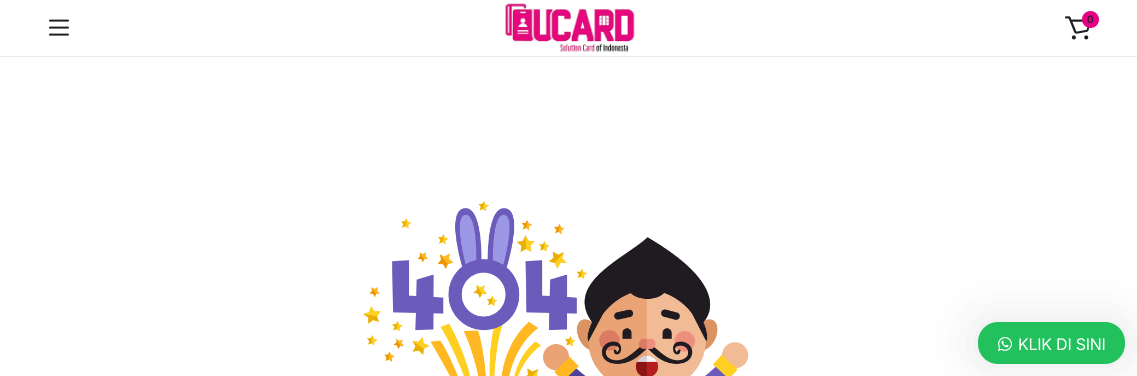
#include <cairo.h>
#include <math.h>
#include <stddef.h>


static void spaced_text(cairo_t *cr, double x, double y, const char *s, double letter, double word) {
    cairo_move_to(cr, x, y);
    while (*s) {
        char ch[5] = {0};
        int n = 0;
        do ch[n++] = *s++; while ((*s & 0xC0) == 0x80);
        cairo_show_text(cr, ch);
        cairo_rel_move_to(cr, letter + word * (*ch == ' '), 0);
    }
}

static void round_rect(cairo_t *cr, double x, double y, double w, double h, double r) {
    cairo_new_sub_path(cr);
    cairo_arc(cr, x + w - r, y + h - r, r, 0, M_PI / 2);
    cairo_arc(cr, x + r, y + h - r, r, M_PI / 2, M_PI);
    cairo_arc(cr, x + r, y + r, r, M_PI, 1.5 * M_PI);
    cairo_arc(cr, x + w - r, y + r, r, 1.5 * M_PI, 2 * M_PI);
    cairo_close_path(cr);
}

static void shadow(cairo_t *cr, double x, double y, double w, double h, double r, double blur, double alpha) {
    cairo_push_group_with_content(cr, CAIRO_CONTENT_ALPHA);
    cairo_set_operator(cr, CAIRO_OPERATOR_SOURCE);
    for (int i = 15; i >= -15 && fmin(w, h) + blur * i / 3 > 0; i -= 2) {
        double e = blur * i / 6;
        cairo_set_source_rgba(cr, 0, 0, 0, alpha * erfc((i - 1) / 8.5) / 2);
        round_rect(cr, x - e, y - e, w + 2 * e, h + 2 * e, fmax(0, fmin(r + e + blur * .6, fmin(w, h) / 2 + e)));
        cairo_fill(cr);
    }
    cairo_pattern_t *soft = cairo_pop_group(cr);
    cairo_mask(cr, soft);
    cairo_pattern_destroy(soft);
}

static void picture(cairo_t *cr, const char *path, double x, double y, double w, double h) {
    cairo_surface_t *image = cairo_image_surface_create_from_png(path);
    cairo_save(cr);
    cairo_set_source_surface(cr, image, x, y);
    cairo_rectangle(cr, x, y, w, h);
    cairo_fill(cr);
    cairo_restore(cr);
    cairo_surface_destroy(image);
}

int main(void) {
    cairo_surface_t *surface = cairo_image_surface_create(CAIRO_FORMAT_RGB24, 1137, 376);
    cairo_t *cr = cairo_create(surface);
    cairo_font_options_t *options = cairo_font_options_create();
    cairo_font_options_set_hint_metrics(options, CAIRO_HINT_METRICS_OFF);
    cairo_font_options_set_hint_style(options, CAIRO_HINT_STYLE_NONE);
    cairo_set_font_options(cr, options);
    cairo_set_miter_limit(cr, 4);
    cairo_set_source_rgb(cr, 1, 1, 1);
    cairo_paint(cr);
    cairo_set_source_rgb(cr, 0.91, 0.914, 0.914);
    cairo_rectangle(cr, 0, 56, 1137, 1);
    cairo_fill(cr);
    picture(cr, "img1.png", 49, 19, 20, 17);
    picture(cr, "img2.png", 505, 3, 130, 49);
    picture(cr, "img3.png", 1065, 16, 25, 24);
    cairo_set_source_rgb(cr, 0.89, 0, 0.514);
    cairo_arc(cr, 1090.5, 19.5, 8.5, 0, 2 * M_PI);
    cairo_fill(cr);
    cairo_select_font_face(cr, "Inter Medium", CAIRO_FONT_SLANT_NORMAL, CAIRO_FONT_WEIGHT_NORMAL);
    cairo_set_font_size(cr, 10);
    cairo_set_source_rgb(cr, 0.106, 0.122, 0.133);
    spaced_text(cr, 1087, 23, "0", -0.25, 0);
    picture(cr, "img4.png", 363, 201, 386, 175);
    cairo_set_source_rgb(cr, 0, 0, 0);
    shadow(cr, 978, 322, 147, 42, 20, 25, 0.1);
    cairo_set_source_rgb(cr, 0.133, 0.757, 0.369);
    round_rect(cr, 978, 322, 147, 42, 20);
    cairo_fill(cr);
    picture(cr, "img5.png", 998, 337, 14, 14);
    cairo_select_font_face(cr, "Inter", CAIRO_FONT_SLANT_NORMAL, CAIRO_FONT_WEIGHT_NORMAL);
    cairo_set_font_size(cr, 16);
    cairo_set_source_rgb(cr, 1, 1, 1);
    spaced_text(cr, 1018, 350, "KLIK DI SINI", -0.25, 0);
    cairo_surface_write_to_png(surface, "page.png");
    cairo_font_options_destroy(options);
    cairo_destroy(cr);
    cairo_surface_destroy(surface);
    return 0;
}
